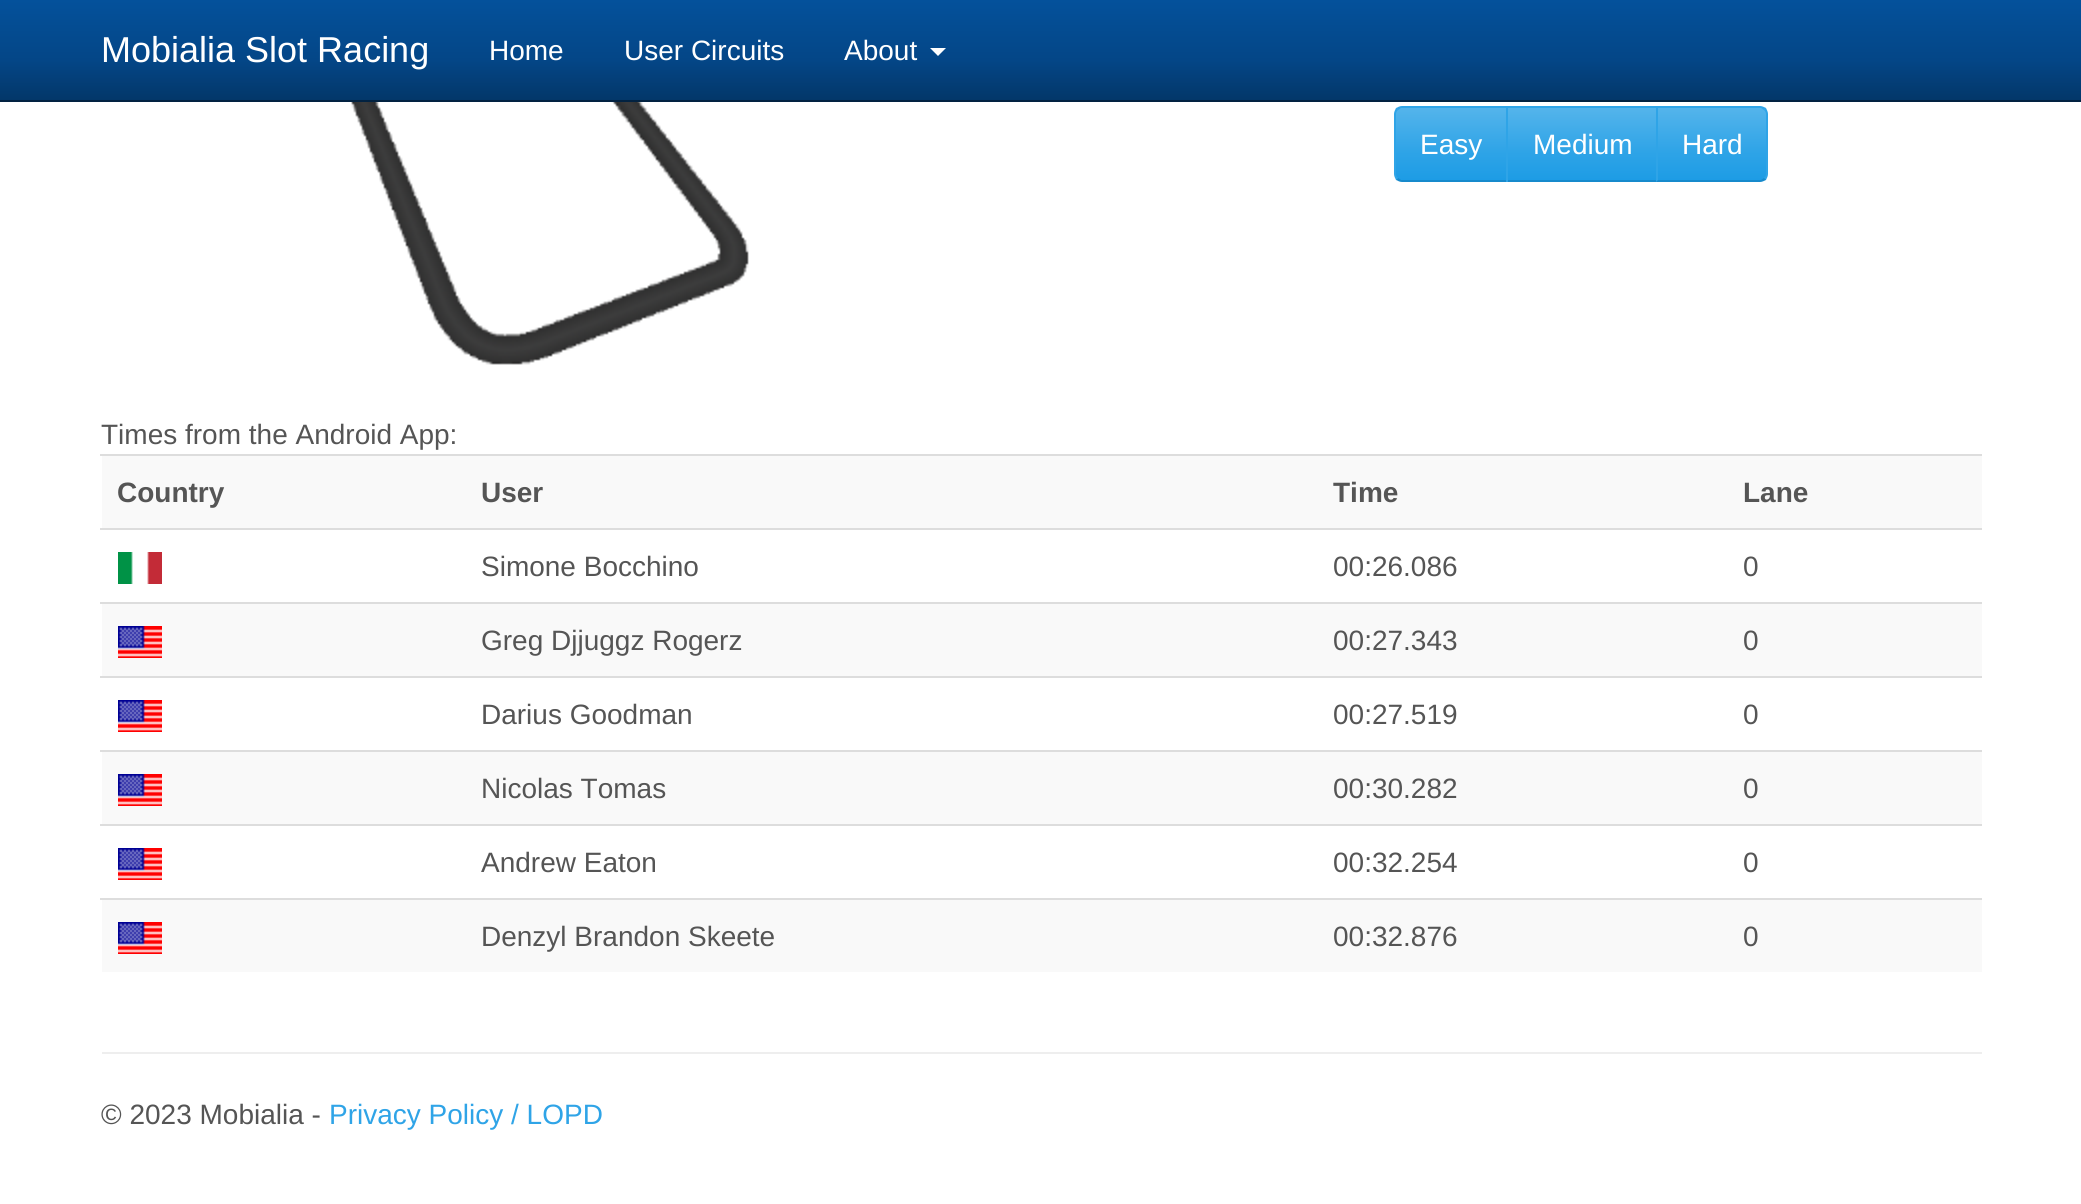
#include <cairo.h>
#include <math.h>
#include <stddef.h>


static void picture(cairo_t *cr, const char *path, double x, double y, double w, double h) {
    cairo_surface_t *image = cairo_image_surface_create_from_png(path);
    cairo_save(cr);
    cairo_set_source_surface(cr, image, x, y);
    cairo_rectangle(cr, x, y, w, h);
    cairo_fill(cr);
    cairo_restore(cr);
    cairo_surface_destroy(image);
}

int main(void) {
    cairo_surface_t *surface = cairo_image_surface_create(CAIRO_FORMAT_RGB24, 2081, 1204);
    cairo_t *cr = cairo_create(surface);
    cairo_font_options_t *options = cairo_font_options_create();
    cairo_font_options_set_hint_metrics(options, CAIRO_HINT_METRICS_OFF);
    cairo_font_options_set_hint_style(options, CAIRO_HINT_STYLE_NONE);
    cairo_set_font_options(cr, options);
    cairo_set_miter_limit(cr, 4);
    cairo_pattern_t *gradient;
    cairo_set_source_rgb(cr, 1, 1, 1);
    cairo_paint(cr);
    gradient = cairo_pattern_create_linear(1041, 0, 1041, 100);
    cairo_pattern_add_color_stop_rgba(gradient, 0, 0.016, 0.318, 0.608, 1);
    cairo_pattern_add_color_stop_rgba(gradient, 0.6, 0.016, 0.275, 0.529, 1);
    cairo_pattern_add_color_stop_rgba(gradient, 1, 0.012, 0.216, 0.412, 1);
    cairo_set_source(cr, gradient);
    cairo_pattern_destroy(gradient);
    cairo_rectangle(cr, 0, 0, 2081, 100);
    cairo_fill(cr);
    cairo_set_source_rgb(cr, 0.008, 0.133, 0.255);
    cairo_rectangle(cr, 0, 100, 2081, 2);
    cairo_fill(cr);
    cairo_select_font_face(cr, "Liberation Sans", CAIRO_FONT_SLANT_NORMAL, CAIRO_FONT_WEIGHT_NORMAL);
    cairo_set_font_size(cr, 36);
    cairo_set_source_rgb(cr, 1, 1, 1);
    cairo_move_to(cr, 101, 62);
    cairo_show_text(cr, "Mobialia Slot Racing");
    cairo_set_font_size(cr, 28);
    cairo_move_to(cr, 489, 60);
    cairo_show_text(cr, "Home");
    cairo_move_to(cr, 624, 60);
    cairo_show_text(cr, "User Circuits");
    cairo_move_to(cr, 844, 60);
    cairo_show_text(cr, "About");
    cairo_new_path(cr);
    cairo_move_to(cr, 930, 48);
    cairo_line_to(cr, 946, 48);
    cairo_line_to(cr, 938, 56);
    cairo_close_path(cr);
    cairo_fill(cr);
    picture(cr, "img1.png", 351, 102, 398, 263);
    gradient = cairo_pattern_create_linear(1451, 108, 1451, 180);
    cairo_pattern_add_color_stop_rgba(gradient, 0, 0.329, 0.706, 0.922, 1);
    cairo_pattern_add_color_stop_rgba(gradient, 0.6, 0.184, 0.643, 0.906, 1);
    cairo_pattern_add_color_stop_rgba(gradient, 1, 0.114, 0.612, 0.898, 1);
    cairo_set_source(cr, gradient);
    cairo_pattern_destroy(gradient);
    cairo_rectangle(cr, 1396, 108, 110, 72);
    cairo_fill(cr);
    cairo_set_source_rgb(cr, 0.184, 0.643, 0.906);
    cairo_new_path(cr);
    cairo_move_to(cr, 1402, 106);
    cairo_curve_to(cr, 1400, 106, 1398, 107, 1396, 108);
    cairo_line_to(cr, 1398, 110);
    cairo_line_to(cr, 1401, 108);
    cairo_line_to(cr, 1506, 108);
    cairo_line_to(cr, 1508, 106);
    cairo_close_path(cr);
    cairo_fill(cr);
    cairo_set_source_rgb(cr, 0.09, 0.541, 0.8);
    cairo_new_path(cr);
    cairo_move_to(cr, 1508, 182);
    cairo_line_to(cr, 1506, 180);
    cairo_line_to(cr, 1401, 180);
    cairo_line_to(cr, 1398, 178);
    cairo_line_to(cr, 1396, 180);
    cairo_curve_to(cr, 1398, 181, 1400, 182, 1402, 182);
    cairo_close_path(cr);
    cairo_fill(cr);
    cairo_set_source_rgb(cr, 0.184, 0.643, 0.906);
    cairo_new_path(cr);
    cairo_move_to(cr, 1394, 114);
    cairo_line_to(cr, 1394, 174);
    cairo_curve_to(cr, 1394, 176, 1395, 178, 1396, 180);
    cairo_line_to(cr, 1398, 178);
    cairo_curve_to(cr, 1397, 177, 1396, 176, 1396, 174);
    cairo_line_to(cr, 1396, 114);
    cairo_curve_to(cr, 1396, 112, 1397, 111, 1398, 110);
    cairo_line_to(cr, 1396, 108);
    cairo_curve_to(cr, 1395, 110, 1394, 112, 1394, 114);
    cairo_close_path(cr);
    cairo_fill(cr);
    cairo_set_source_rgb(cr, 1, 1, 1);
    cairo_move_to(cr, 1420, 154);
    cairo_show_text(cr, "Easy");
    cairo_set_source_rgb(cr, 0.184, 0.643, 0.906);
    cairo_rectangle(cr, 1508, 106, 150, 2);
    cairo_fill(cr);
    gradient = cairo_pattern_create_linear(1582, 108, 1582, 180);
    cairo_pattern_add_color_stop_rgba(gradient, 0, 0.329, 0.706, 0.922, 1);
    cairo_pattern_add_color_stop_rgba(gradient, 0.6, 0.184, 0.643, 0.906, 1);
    cairo_pattern_add_color_stop_rgba(gradient, 1, 0.114, 0.612, 0.898, 1);
    cairo_set_source(cr, gradient);
    cairo_pattern_destroy(gradient);
    cairo_rectangle(cr, 1508, 108, 148, 72);
    cairo_fill(cr);
    cairo_set_source_rgb(cr, 0.09, 0.541, 0.8);
    cairo_rectangle(cr, 1506, 180, 152, 2);
    cairo_fill(cr);
    cairo_set_source_rgb(cr, 0.184, 0.643, 0.906);
    cairo_rectangle(cr, 1506, 106, 2, 76);
    cairo_fill(cr);
    cairo_set_source_rgb(cr, 1, 1, 1);
    cairo_move_to(cr, 1533, 154);
    cairo_show_text(cr, "Medium");
    gradient = cairo_pattern_create_linear(1712, 108, 1712, 180);
    cairo_pattern_add_color_stop_rgba(gradient, 0, 0.329, 0.706, 0.922, 1);
    cairo_pattern_add_color_stop_rgba(gradient, 0.6, 0.184, 0.643, 0.906, 1);
    cairo_pattern_add_color_stop_rgba(gradient, 1, 0.114, 0.612, 0.898, 1);
    cairo_set_source(cr, gradient);
    cairo_pattern_destroy(gradient);
    cairo_rectangle(cr, 1658, 108, 108, 72);
    cairo_fill(cr);
    cairo_set_source_rgb(cr, 0.184, 0.643, 0.906);
    cairo_new_path(cr);
    cairo_move_to(cr, 1656, 106);
    cairo_line_to(cr, 1658, 108);
    cairo_line_to(cr, 1761, 108);
    cairo_line_to(cr, 1764, 110);
    cairo_line_to(cr, 1766, 108);
    cairo_curve_to(cr, 1764, 107, 1762, 106, 1760, 106);
    cairo_close_path(cr);
    cairo_fill(cr);
    cairo_new_path(cr);
    cairo_move_to(cr, 1768, 174);
    cairo_line_to(cr, 1768, 114);
    cairo_curve_to(cr, 1768, 112, 1767, 110, 1766, 108);
    cairo_line_to(cr, 1764, 110);
    cairo_curve_to(cr, 1765, 111, 1766, 112, 1766, 114);
    cairo_line_to(cr, 1766, 174);
    cairo_curve_to(cr, 1766, 176, 1765, 177, 1764, 178);
    cairo_line_to(cr, 1766, 180);
    cairo_curve_to(cr, 1767, 178, 1768, 176, 1768, 174);
    cairo_close_path(cr);
    cairo_fill(cr);
    cairo_set_source_rgb(cr, 0.09, 0.541, 0.8);
    cairo_new_path(cr);
    cairo_move_to(cr, 1760, 182);
    cairo_curve_to(cr, 1762, 182, 1764, 181, 1766, 180);
    cairo_line_to(cr, 1764, 178);
    cairo_line_to(cr, 1761, 180);
    cairo_line_to(cr, 1658, 180);
    cairo_line_to(cr, 1656, 182);
    cairo_close_path(cr);
    cairo_fill(cr);
    cairo_set_source_rgb(cr, 0.184, 0.643, 0.906);
    cairo_new_path(cr);
    cairo_move_to(cr, 1656, 106);
    cairo_line_to(cr, 1656, 182);
    cairo_line_to(cr, 1658, 180);
    cairo_line_to(cr, 1658, 108);
    cairo_close_path(cr);
    cairo_fill(cr);
    cairo_set_source_rgb(cr, 1, 1, 1);
    cairo_move_to(cr, 1682, 154);
    cairo_show_text(cr, "Hard");
    cairo_set_source_rgb(cr, 0.333, 0.333, 0.333);
    cairo_move_to(cr, 101, 444);
    cairo_show_text(cr, "Times from the Android App:");
    cairo_set_source_rgb(cr, 0.976, 0.976, 0.976);
    cairo_rectangle(cr, 102, 456, 1880, 72);
    cairo_fill(cr);
    cairo_select_font_face(cr, "Liberation Sans", CAIRO_FONT_SLANT_NORMAL, CAIRO_FONT_WEIGHT_BOLD);
    cairo_set_source_rgb(cr, 0.333, 0.333, 0.333);
    cairo_move_to(cr, 117, 502);
    cairo_show_text(cr, "Country");
    cairo_move_to(cr, 481, 502);
    cairo_show_text(cr, "User");
    cairo_move_to(cr, 1333, 502);
    cairo_show_text(cr, "Time");
    cairo_set_source_rgb(cr, 0.867, 0.867, 0.867);
    cairo_rectangle(cr, 100, 454, 1882, 2);
    cairo_fill(cr);
    cairo_set_source_rgb(cr, 0.333, 0.333, 0.333);
    cairo_move_to(cr, 1743, 502);
    cairo_show_text(cr, "Lane");
    picture(cr, "img2.png", 118, 552, 44, 32);
    cairo_select_font_face(cr, "Liberation Sans", CAIRO_FONT_SLANT_NORMAL, CAIRO_FONT_WEIGHT_NORMAL);
    cairo_move_to(cr, 481, 576);
    cairo_show_text(cr, "Simone Bocchino");
    cairo_move_to(cr, 1333, 576);
    cairo_show_text(cr, "00:26.086");
    cairo_set_source_rgb(cr, 0.867, 0.867, 0.867);
    cairo_rectangle(cr, 100, 528, 1882, 2);
    cairo_fill(cr);
    cairo_set_source_rgb(cr, 0.333, 0.333, 0.333);
    cairo_move_to(cr, 1743, 576);
    cairo_show_text(cr, "0");
    cairo_set_source_rgb(cr, 0.976, 0.976, 0.976);
    cairo_rectangle(cr, 102, 604, 1880, 72);
    cairo_fill(cr);
    picture(cr, "img3.png", 118, 626, 44, 32);
    cairo_set_source_rgb(cr, 0.333, 0.333, 0.333);
    cairo_move_to(cr, 481, 650);
    cairo_show_text(cr, "Greg Djjuggz Rogerz");
    cairo_move_to(cr, 1333, 650);
    cairo_show_text(cr, "00:27.343");
    cairo_set_source_rgb(cr, 0.867, 0.867, 0.867);
    cairo_rectangle(cr, 100, 602, 1882, 2);
    cairo_fill(cr);
    cairo_set_source_rgb(cr, 0.333, 0.333, 0.333);
    cairo_move_to(cr, 1743, 650);
    cairo_show_text(cr, "0");
    picture(cr, "img3.png", 118, 700, 44, 32);
    cairo_move_to(cr, 481, 724);
    cairo_show_text(cr, "Darius Goodman");
    cairo_move_to(cr, 1333, 724);
    cairo_show_text(cr, "00:27.519");
    cairo_set_source_rgb(cr, 0.867, 0.867, 0.867);
    cairo_rectangle(cr, 100, 676, 1882, 2);
    cairo_fill(cr);
    cairo_set_source_rgb(cr, 0.333, 0.333, 0.333);
    cairo_move_to(cr, 1743, 724);
    cairo_show_text(cr, "0");
    cairo_set_source_rgb(cr, 0.976, 0.976, 0.976);
    cairo_rectangle(cr, 102, 752, 1880, 72);
    cairo_fill(cr);
    picture(cr, "img3.png", 118, 774, 44, 32);
    cairo_set_source_rgb(cr, 0.333, 0.333, 0.333);
    cairo_move_to(cr, 481, 798);
    cairo_show_text(cr, "Nicolas Tomas");
    cairo_move_to(cr, 1333, 798);
    cairo_show_text(cr, "00:30.282");
    cairo_set_source_rgb(cr, 0.867, 0.867, 0.867);
    cairo_rectangle(cr, 100, 750, 1882, 2);
    cairo_fill(cr);
    cairo_set_source_rgb(cr, 0.333, 0.333, 0.333);
    cairo_move_to(cr, 1743, 798);
    cairo_show_text(cr, "0");
    picture(cr, "img3.png", 118, 848, 44, 32);
    cairo_move_to(cr, 481, 872);
    cairo_show_text(cr, "Andrew Eaton");
    cairo_move_to(cr, 1333, 872);
    cairo_show_text(cr, "00:32.254");
    cairo_set_source_rgb(cr, 0.867, 0.867, 0.867);
    cairo_rectangle(cr, 100, 824, 1882, 2);
    cairo_fill(cr);
    cairo_set_source_rgb(cr, 0.333, 0.333, 0.333);
    cairo_move_to(cr, 1743, 872);
    cairo_show_text(cr, "0");
    cairo_set_source_rgb(cr, 0.976, 0.976, 0.976);
    cairo_rectangle(cr, 102, 900, 1880, 72);
    cairo_fill(cr);
    picture(cr, "img3.png", 118, 922, 44, 32);
    cairo_set_source_rgb(cr, 0.333, 0.333, 0.333);
    cairo_move_to(cr, 481, 946);
    cairo_show_text(cr, "Denzyl Brandon Skeete");
    cairo_move_to(cr, 1333, 946);
    cairo_show_text(cr, "00:32.876");
    cairo_set_source_rgb(cr, 0.867, 0.867, 0.867);
    cairo_rectangle(cr, 100, 898, 1882, 2);
    cairo_fill(cr);
    cairo_set_source_rgb(cr, 0.333, 0.333, 0.333);
    cairo_move_to(cr, 1743, 946);
    cairo_show_text(cr, "0");
    cairo_set_source_rgb(cr, 0.933, 0.933, 0.933);
    cairo_rectangle(cr, 102, 1052, 1880, 2);
    cairo_fill(cr);
    cairo_set_source_rgb(cr, 0.333, 0.333, 0.333);
    cairo_move_to(cr, 101, 1124);
    cairo_show_text(cr, "© 2023 Mobialia -");
    cairo_set_source_rgb(cr, 0.184, 0.643, 0.906);
    cairo_move_to(cr, 329, 1124);
    cairo_show_text(cr, "Privacy Policy / LOPD");
    cairo_surface_write_to_png(surface, "page.png");
    cairo_font_options_destroy(options);
    cairo_destroy(cr);
    cairo_surface_destroy(surface);
    return 0;
}
